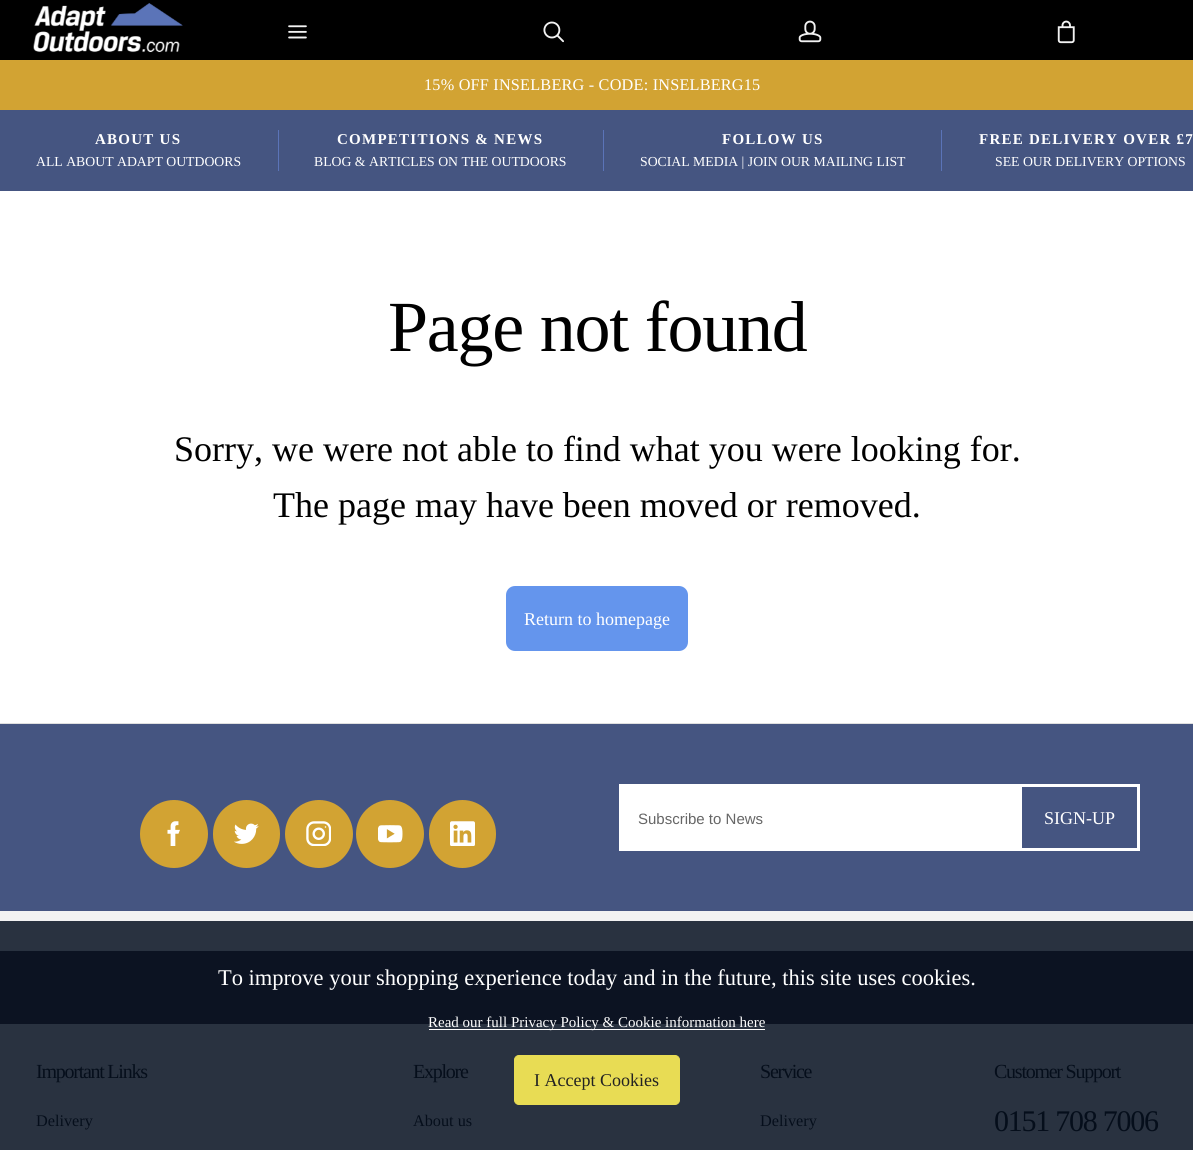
#include <cairo.h>
#include <math.h>
#include <stddef.h>


static void spaced_text(cairo_t *cr, double x, double y, const char *s, double letter, double word) {
    cairo_move_to(cr, x, y);
    while (*s) {
        char ch[5] = {0};
        int n = 0;
        do ch[n++] = *s++; while ((*s & 0xC0) == 0x80);
        cairo_show_text(cr, ch);
        cairo_rel_move_to(cr, letter + word * (*ch == ' '), 0);
    }
}

static void round_rect(cairo_t *cr, double x, double y, double w, double h, double r) {
    cairo_new_sub_path(cr);
    cairo_arc(cr, x + w - r, y + h - r, r, 0, M_PI / 2);
    cairo_arc(cr, x + r, y + h - r, r, M_PI / 2, M_PI);
    cairo_arc(cr, x + r, y + r, r, M_PI, 1.5 * M_PI);
    cairo_arc(cr, x + w - r, y + r, r, 1.5 * M_PI, 2 * M_PI);
    cairo_close_path(cr);
}

static void picture(cairo_t *cr, const char *path, double x, double y, double w, double h) {
    cairo_surface_t *image = cairo_image_surface_create_from_png(path);
    cairo_save(cr);
    cairo_set_source_surface(cr, image, x, y);
    cairo_rectangle(cr, x, y, w, h);
    cairo_fill(cr);
    cairo_restore(cr);
    cairo_surface_destroy(image);
}

int main(void) {
    cairo_surface_t *surface = cairo_image_surface_create(CAIRO_FORMAT_RGB24, 1193, 1150);
    cairo_t *cr = cairo_create(surface);
    cairo_font_options_t *options = cairo_font_options_create();
    cairo_font_options_set_hint_metrics(options, CAIRO_HINT_METRICS_OFF);
    cairo_font_options_set_hint_style(options, CAIRO_HINT_STYLE_NONE);
    cairo_set_font_options(cr, options);
    cairo_set_miter_limit(cr, 4);
    cairo_set_source_rgb(cr, 0.949, 0.949, 0.949);
    cairo_paint(cr);
    cairo_set_source_rgb(cr, 0.161, 0.196, 0.251);
    cairo_rectangle(cr, 0, 921, 1193, 229);
    cairo_fill(cr);
    cairo_set_source_rgb(cr, 0, 0, 0);
    cairo_rectangle(cr, 0, 0, 1193, 60);
    cairo_fill(cr);
    picture(cr, "img1.png", 33, 3, 150, 50);
    picture(cr, "img2.png", 288, 25, 19, 14);
    picture(cr, "img3.png", 543, 21, 21, 22);
    picture(cr, "img4.png", 798, 20, 24, 23);
    picture(cr, "img5.png", 1057, 20, 18, 24);
    cairo_set_source_rgb(cr, 0.824, 0.639, 0.2);
    cairo_rectangle(cr, 0, 60, 1193, 50);
    cairo_fill(cr);
    cairo_select_font_face(cr, "Liberation Serif", CAIRO_FONT_SLANT_NORMAL, CAIRO_FONT_WEIGHT_NORMAL);
    cairo_set_font_size(cr, 16.25);
    cairo_set_source_rgb(cr, 1, 1, 1);
    spaced_text(cr, 424, 90, "15% OFF INSELBERG - CODE: INSELBERG15", 0.2, 0);
    cairo_set_source_rgb(cr, 0.271, 0.333, 0.506);
    cairo_rectangle(cr, 0, 110, 1193, 81);
    cairo_fill(cr);
    cairo_select_font_face(cr, "Liberation Serif", CAIRO_FONT_SLANT_NORMAL, CAIRO_FONT_WEIGHT_BOLD);
    cairo_set_font_size(cr, 15);
    cairo_set_source_rgb(cr, 1, 1, 1);
    spaced_text(cr, 95, 144, "ABOUT US", 1.25, 0);
    cairo_select_font_face(cr, "Liberation Serif", CAIRO_FONT_SLANT_NORMAL, CAIRO_FONT_WEIGHT_NORMAL);
    cairo_set_font_size(cr, 13.75);
    cairo_move_to(cr, 36, 166);
    cairo_show_text(cr, "ALL ABOUT ADAPT OUTDOORS");
    cairo_set_source_rgb(cr, 0.357, 0.455, 0.722);
    cairo_rectangle(cr, 278, 130, 1, 41);
    cairo_fill(cr);
    cairo_select_font_face(cr, "Liberation Serif", CAIRO_FONT_SLANT_NORMAL, CAIRO_FONT_WEIGHT_BOLD);
    cairo_set_font_size(cr, 15);
    cairo_set_source_rgb(cr, 1, 1, 1);
    spaced_text(cr, 337, 144, "COMPETITIONS & NEWS", 1.25, 0);
    cairo_select_font_face(cr, "Liberation Serif", CAIRO_FONT_SLANT_NORMAL, CAIRO_FONT_WEIGHT_NORMAL);
    cairo_set_font_size(cr, 13.75);
    cairo_move_to(cr, 314, 166);
    cairo_show_text(cr, "BLOG & ARTICLES ON THE OUTDOORS");
    cairo_set_source_rgb(cr, 0.357, 0.455, 0.722);
    cairo_rectangle(cr, 603, 130, 1, 41);
    cairo_fill(cr);
    cairo_select_font_face(cr, "Liberation Serif", CAIRO_FONT_SLANT_NORMAL, CAIRO_FONT_WEIGHT_BOLD);
    cairo_set_font_size(cr, 15);
    cairo_set_source_rgb(cr, 1, 1, 1);
    spaced_text(cr, 722, 144, "FOLLOW US", 1.25, 0);
    cairo_select_font_face(cr, "Liberation Serif", CAIRO_FONT_SLANT_NORMAL, CAIRO_FONT_WEIGHT_NORMAL);
    cairo_set_font_size(cr, 13.75);
    cairo_move_to(cr, 640, 166);
    cairo_show_text(cr, "SOCIAL MEDIA | JOIN OUR MAILING LIST");
    cairo_set_source_rgb(cr, 0.357, 0.455, 0.722);
    cairo_rectangle(cr, 941, 130, 1, 41);
    cairo_fill(cr);
    cairo_select_font_face(cr, "Liberation Serif", CAIRO_FONT_SLANT_NORMAL, CAIRO_FONT_WEIGHT_BOLD);
    cairo_set_font_size(cr, 15);
    cairo_set_source_rgb(cr, 1, 1, 1);
    spaced_text(cr, 979, 144, "FREE DELIVERY OVER £7", 1.25, 0);
    cairo_select_font_face(cr, "Liberation Serif", CAIRO_FONT_SLANT_NORMAL, CAIRO_FONT_WEIGHT_NORMAL);
    cairo_set_font_size(cr, 13.75);
    cairo_move_to(cr, 995, 166);
    cairo_show_text(cr, "SEE OUR DELIVERY OPTIONS");
    cairo_rectangle(cr, 0, 191, 1193, 532);
    cairo_fill(cr);
    cairo_set_font_size(cr, 72);
    cairo_set_source_rgb(cr, 0, 0, 0);
    spaced_text(cr, 388, 351, "Page not found", -1.25, 0);
    cairo_set_font_size(cr, 36);
    cairo_move_to(cr, 174, 461);
    cairo_show_text(cr, "Sorry, we were not able to find what you were looking for.");
    cairo_move_to(cr, 273, 517);
    cairo_show_text(cr, "The page may have been moved or removed.");
    cairo_set_source_rgb(cr, 0.392, 0.584, 0.929);
    round_rect(cr, 506, 586, 182, 65, 9);
    cairo_fill(cr);
    cairo_set_font_size(cr, 18);
    cairo_set_source_rgb(cr, 1, 1, 1);
    cairo_move_to(cr, 524, 625);
    cairo_show_text(cr, "Return to homepage");
    cairo_set_source_rgb(cr, 0.875, 0.875, 0.875);
    cairo_rectangle(cr, 0, 723, 1193, 1);
    cairo_fill(cr);
    cairo_set_source_rgb(cr, 0.271, 0.333, 0.506);
    cairo_rectangle(cr, 0, 724, 1193, 187);
    cairo_fill(cr);
    cairo_set_source_rgb(cr, 0.824, 0.639, 0.2);
    cairo_arc(cr, 174, 834, 34, 0, 2 * M_PI);
    cairo_fill(cr);
    picture(cr, "img6.png", 167, 821, 13, 25);
    round_rect(cr, 213, 800, 67, 68, 33.5);
    cairo_fill(cr);
    picture(cr, "img7.png", 234, 823, 25, 21);
    cairo_arc(cr, 319, 834, 34, 0, 2 * M_PI);
    cairo_fill(cr);
    picture(cr, "img8.png", 306, 821, 25, 25);
    cairo_arc(cr, 390, 834, 34, 0, 2 * M_PI);
    cairo_fill(cr);
    picture(cr, "img9.png", 378, 825, 25, 18);
    round_rect(cr, 429, 800, 67, 68, 33.5);
    cairo_fill(cr);
    picture(cr, "img10.png", 450, 821, 25, 25);
    cairo_set_source_rgb(cr, 1, 1, 1);
    cairo_rectangle(cr, 619, 784, 400, 67);
    cairo_fill(cr);
    cairo_select_font_face(cr, "Liberation Sans", CAIRO_FONT_SLANT_NORMAL, CAIRO_FONT_WEIGHT_NORMAL);
    cairo_set_font_size(cr, 15);
    cairo_set_source_rgb(cr, 0.4, 0.4, 0.4);
    cairo_move_to(cr, 638, 824);
    cairo_show_text(cr, "Subscribe to News");
    cairo_rectangle(cr, 1020.5, 785.5, 118, 64);
    cairo_set_source_rgb(cr, 1, 1, 1);
    cairo_set_line_width(cr, 3);
    cairo_stroke(cr);
    cairo_select_font_face(cr, "Liberation Serif", CAIRO_FONT_SLANT_NORMAL, CAIRO_FONT_WEIGHT_NORMAL);
    cairo_set_font_size(cr, 18);
    cairo_move_to(cr, 1044, 824);
    cairo_show_text(cr, "SIGN-UP");
    cairo_set_source_rgb(cr, 0.047, 0.078, 0.133);
    cairo_rectangle(cr, 0, 951, 1193, 73);
    cairo_fill(cr);
    cairo_set_font_size(cr, 20);
    cairo_set_source_rgb(cr, 0.02, 0.055, 0.106);
    spaced_text(cr, 36, 1078, "Important Links", -1.25, 0);
    cairo_set_font_size(cr, 16.25);
    cairo_move_to(cr, 36, 1126);
    cairo_show_text(cr, "Delivery");
    cairo_set_font_size(cr, 20);
    spaced_text(cr, 413, 1078, "Explore", -1.25, 0);
    cairo_set_font_size(cr, 16.25);
    cairo_move_to(cr, 413, 1126);
    cairo_show_text(cr, "About us");
    cairo_set_font_size(cr, 20);
    spaced_text(cr, 760, 1078, "Service", -1.25, 0);
    cairo_set_font_size(cr, 16.25);
    cairo_move_to(cr, 760, 1126);
    cairo_show_text(cr, "Delivery");
    cairo_set_font_size(cr, 20);
    spaced_text(cr, 994, 1078, "Customer Support", -1.25, 0);
    cairo_set_font_size(cr, 30);
    spaced_text(cr, 994, 1131, "0151 708 7006", -1.25, 0);
    cairo_set_font_size(cr, 22.5);
    cairo_set_source_rgb(cr, 1, 1, 1);
    cairo_move_to(cr, 218, 985);
    cairo_show_text(cr, "To improve your shopping experience today and in the future, this site uses cookies.");
    cairo_rectangle(cr, 429, 1029, 336, 1);
    cairo_fill(cr);
    cairo_set_font_size(cr, 15);
    cairo_move_to(cr, 428, 1027);
    cairo_show_text(cr, "Read our full Privacy Policy & Cookie information here");
    cairo_set_source_rgb(cr, 0.91, 0.863, 0.329);
    round_rect(cr, 514.5, 1055.5, 165, 49, 4.5);
    cairo_fill_preserve(cr);
    cairo_set_line_width(cr, 1);
    cairo_stroke(cr);
    cairo_set_font_size(cr, 18);
    cairo_set_source_rgb(cr, 0.133, 0.133, 0.133);
    cairo_move_to(cr, 534, 1086);
    cairo_show_text(cr, "I Accept Cookies");
    cairo_surface_write_to_png(surface, "page.png");
    cairo_font_options_destroy(options);
    cairo_destroy(cr);
    cairo_surface_destroy(surface);
    return 0;
}
